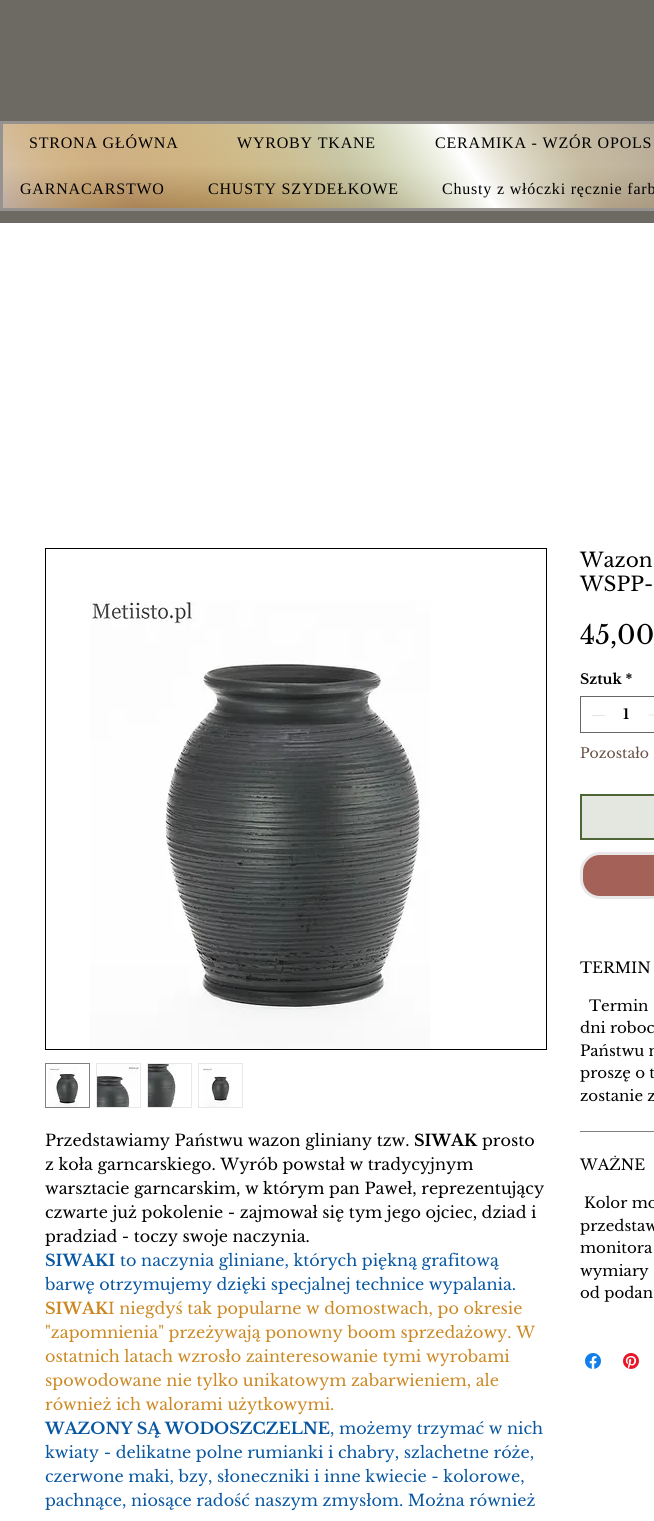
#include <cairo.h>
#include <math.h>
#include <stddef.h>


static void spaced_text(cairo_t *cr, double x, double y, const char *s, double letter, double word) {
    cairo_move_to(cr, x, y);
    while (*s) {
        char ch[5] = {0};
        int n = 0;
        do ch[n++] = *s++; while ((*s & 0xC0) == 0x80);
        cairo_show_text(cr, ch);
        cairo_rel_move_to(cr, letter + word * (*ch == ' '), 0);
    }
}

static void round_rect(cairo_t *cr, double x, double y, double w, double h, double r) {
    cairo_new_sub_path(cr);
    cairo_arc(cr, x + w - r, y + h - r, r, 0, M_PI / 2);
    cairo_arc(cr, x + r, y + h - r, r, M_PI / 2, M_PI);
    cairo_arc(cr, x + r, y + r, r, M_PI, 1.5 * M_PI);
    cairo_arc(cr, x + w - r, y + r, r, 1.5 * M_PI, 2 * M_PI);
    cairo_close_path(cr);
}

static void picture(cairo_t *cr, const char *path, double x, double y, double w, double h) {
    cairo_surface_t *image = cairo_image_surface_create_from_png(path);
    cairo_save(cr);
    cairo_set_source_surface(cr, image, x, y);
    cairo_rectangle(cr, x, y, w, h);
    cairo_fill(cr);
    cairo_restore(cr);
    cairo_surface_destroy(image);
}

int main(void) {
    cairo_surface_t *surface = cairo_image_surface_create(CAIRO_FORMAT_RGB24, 654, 1521);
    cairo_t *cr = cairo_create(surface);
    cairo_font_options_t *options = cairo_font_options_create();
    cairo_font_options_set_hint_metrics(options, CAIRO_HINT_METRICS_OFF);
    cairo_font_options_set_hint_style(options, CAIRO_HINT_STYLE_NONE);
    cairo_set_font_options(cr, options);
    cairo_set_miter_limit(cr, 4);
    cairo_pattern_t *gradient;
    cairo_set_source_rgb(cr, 1, 1, 1);
    cairo_paint(cr);
    cairo_set_source_rgb(cr, 0.424, 0.416, 0.388);
    cairo_rectangle(cr, 0, 0, 654, 223);
    cairo_fill(cr);
    gradient = cairo_pattern_create_linear(490, 124, 490, 208);
    cairo_pattern_add_color_stop_rgba(gradient, 0.49, 0.78, 0.675, 0.616, 1);
    cairo_pattern_add_color_stop_rgba(gradient, 1, 0.608, 0.471, 0.404, 1);
    cairo_set_source(cr, gradient);
    cairo_pattern_destroy(gradient);
    cairo_rectangle(cr, 3, 124, 651, 84);
    cairo_fill(cr);
    gradient = cairo_pattern_create_linear(121, 397, 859, -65);
    cairo_pattern_add_color_stop_rgba(gradient, 0, 0.91, 0.91, 0.91, 0.47);
    cairo_pattern_add_color_stop_rgba(gradient, 0.13, 0.976, 0.765, 0, 0.15);
    cairo_pattern_add_color_stop_rgba(gradient, 0.36, 0.792, 0.898, 0.686, 0.47);
    cairo_pattern_add_color_stop_rgba(gradient, 0.48, 1, 1, 1, 1);
    cairo_pattern_add_color_stop_rgba(gradient, 0.59, 0.792, 0.82, 0.671, 0.47);
    cairo_pattern_add_color_stop_rgba(gradient, 0.76, 0.549, 0.541, 0.494, 0.47);
    cairo_pattern_add_color_stop_rgba(gradient, 0.86, 0.643, 0.412, 0.129, 0.47);
    cairo_pattern_add_color_stop_rgba(gradient, 0.99, 0.91, 0.91, 0.91, 0.54);
    cairo_set_source(cr, gradient);
    cairo_pattern_destroy(gradient);
    cairo_rectangle(cr, 3, 124, 651, 84);
    cairo_fill(cr);
    cairo_rectangle(cr, 1.5, 122.5, 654, 87);
    cairo_set_source_rgb(cr, 0.588, 0.573, 0.565);
    cairo_set_line_width(cr, 3);
    cairo_stroke(cr);
    cairo_select_font_face(cr, "Liberation Serif", CAIRO_FONT_SLANT_NORMAL, CAIRO_FONT_WEIGHT_NORMAL);
    cairo_set_font_size(cr, 16);
    cairo_set_source_rgb(cr, 0, 0, 0);
    spaced_text(cr, 29, 148, "STRONA GŁÓWNA", 0.8, 0);
    spaced_text(cr, 237, 148, "WYROBY TKANE", 0.8, 0);
    spaced_text(cr, 435, 148, "CERAMIKA - WZÓR OPOLS", 0.8, 0);
    spaced_text(cr, 20, 194, "GARNACARSTWO", 0.8, 0);
    spaced_text(cr, 208, 194, "CHUSTY SZYDEŁKOWE", 0.8, 0);
    spaced_text(cr, 442, 194, "Chusty z włóczki ręcznie farb", 0.8, 0);
    cairo_rectangle(cr, 45.5, 548.5, 501, 501);
    cairo_set_line_width(cr, 1);
    cairo_stroke(cr);
    picture(cr, "img1.png", 90, 601, 340, 448);
    cairo_rectangle(cr, 45.5, 1063.5, 44, 44);
    cairo_set_source_rgb(cr, 0.502, 0.502, 0.502);
    cairo_stroke(cr);
    picture(cr, "img2.png", 48, 1067, 30, 40);
    cairo_rectangle(cr, 96.5, 1063.5, 44, 44);
    cairo_set_source_rgb(cr, 0.91, 0.91, 0.91);
    cairo_stroke(cr);
    picture(cr, "img3.png", 97, 1064, 42, 43);
    cairo_rectangle(cr, 147.5, 1063.5, 44, 44);
    cairo_stroke(cr);
    picture(cr, "img4.png", 148, 1064, 28, 43);
    cairo_rectangle(cr, 198.5, 1063.5, 44, 44);
    cairo_stroke(cr);
    picture(cr, "img5.png", 203, 1068, 28, 39);
    cairo_select_font_face(cr, "Libre Baskerville", CAIRO_FONT_SLANT_NORMAL, CAIRO_FONT_WEIGHT_NORMAL);
    cairo_set_source_rgb(cr, 0, 0, 0);
    cairo_move_to(cr, 45, 1146);
    cairo_show_text(cr, "Przedstawiamy Państwu wazon gliniany tzw.");
    cairo_select_font_face(cr, "Libre Baskerville", CAIRO_FONT_SLANT_NORMAL, CAIRO_FONT_WEIGHT_BOLD);
    cairo_move_to(cr, 414, 1146);
    cairo_show_text(cr, "SIWAK");
    cairo_select_font_face(cr, "Libre Baskerville", CAIRO_FONT_SLANT_NORMAL, CAIRO_FONT_WEIGHT_NORMAL);
    cairo_move_to(cr, 482, 1146);
    cairo_show_text(cr, "prosto");
    cairo_move_to(cr, 45, 1170);
    cairo_show_text(cr, "z koła garncarskiego. Wyrób powstał w tradycyjnym");
    cairo_move_to(cr, 45, 1194);
    cairo_show_text(cr, "warsztacie garncarskim, w którym pan Paweł, reprezentujący");
    cairo_move_to(cr, 45, 1218);
    cairo_show_text(cr, "czwarte już pokolenie - zajmował się tym jego ojciec, dziad i");
    cairo_move_to(cr, 45, 1242);
    cairo_show_text(cr, "pradziad - toczy swoje naczynia.");
    cairo_select_font_face(cr, "Libre Baskerville", CAIRO_FONT_SLANT_NORMAL, CAIRO_FONT_WEIGHT_BOLD);
    cairo_set_source_rgb(cr, 0.035, 0.341, 0.635);
    cairo_move_to(cr, 45, 1266);
    cairo_show_text(cr, "SIWAKI");
    cairo_select_font_face(cr, "Libre Baskerville", CAIRO_FONT_SLANT_NORMAL, CAIRO_FONT_WEIGHT_NORMAL);
    cairo_move_to(cr, 120, 1266);
    cairo_show_text(cr, "to naczynia gliniane, których piękną grafitową");
    cairo_move_to(cr, 45, 1290);
    cairo_show_text(cr, "barwę otrzymujemy dzięki specjalnej technice wypalania.");
    cairo_select_font_face(cr, "Libre Baskerville", CAIRO_FONT_SLANT_NORMAL, CAIRO_FONT_WEIGHT_BOLD);
    cairo_set_source_rgb(cr, 0.8, 0.533, 0.137);
    cairo_move_to(cr, 45, 1314);
    cairo_show_text(cr, "SIWAK");
    cairo_select_font_face(cr, "Libre Baskerville", CAIRO_FONT_SLANT_NORMAL, CAIRO_FONT_WEIGHT_NORMAL);
    cairo_move_to(cr, 108, 1314);
    cairo_show_text(cr, "I niegdyś tak popularne w domostwach, po okresie");
    cairo_move_to(cr, 45, 1338);
    cairo_show_text(cr, "\"zapomnienia\" przeżywają ponowny boom sprzedażowy. W");
    cairo_move_to(cr, 45, 1362);
    cairo_show_text(cr, "ostatnich latach wzrosło zainteresowanie tymi wyrobami");
    cairo_move_to(cr, 45, 1386);
    cairo_show_text(cr, "spowodowane nie tylko unikatowym zabarwieniem, ale");
    cairo_move_to(cr, 45, 1410);
    cairo_show_text(cr, "również ich walorami użytkowymi.");
    cairo_select_font_face(cr, "Libre Baskerville", CAIRO_FONT_SLANT_NORMAL, CAIRO_FONT_WEIGHT_BOLD);
    cairo_set_source_rgb(cr, 0.035, 0.341, 0.635);
    cairo_move_to(cr, 45, 1434);
    cairo_show_text(cr, "WAZONY SĄ WODOSZCZELNE");
    cairo_select_font_face(cr, "Libre Baskerville", CAIRO_FONT_SLANT_NORMAL, CAIRO_FONT_WEIGHT_NORMAL);
    cairo_move_to(cr, 330, 1434);
    cairo_show_text(cr, ", możemy trzymać w nich");
    cairo_move_to(cr, 45, 1458);
    cairo_show_text(cr, "kwiaty - delikatne polne rumianki i chabry, szlachetne róże,");
    cairo_move_to(cr, 45, 1482);
    cairo_show_text(cr, "czerwone maki, bzy, słoneczniki i inne kwiecie - kolorowe,");
    cairo_move_to(cr, 45, 1506);
    cairo_show_text(cr, "pachnące, niosące radość naszym zmysłom. Można również");
    cairo_set_font_size(cr, 20);
    cairo_set_source_rgb(cr, 0, 0, 0);
    cairo_move_to(cr, 580, 567);
    cairo_show_text(cr, "Wazon");
    cairo_move_to(cr, 580, 591);
    cairo_show_text(cr, "WSPP-");
    cairo_set_font_size(cr, 26);
    cairo_move_to(cr, 580, 644);
    cairo_show_text(cr, "45,00");
    cairo_select_font_face(cr, "Libre Baskerville", CAIRO_FONT_SLANT_NORMAL, CAIRO_FONT_WEIGHT_BOLD);
    cairo_set_font_size(cr, 14);
    cairo_move_to(cr, 580, 684);
    cairo_show_text(cr, "Sztuk *");
    cairo_rectangle(cr, 580.5, 696.5, 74, 36);
    cairo_set_source_rgb(cr, 0.4, 0.4, 0.4);
    cairo_stroke(cr);
    cairo_set_source_rgb(cr, 0.89, 0.89, 0.89);
    cairo_rectangle(cr, 592, 715, 13, 1);
    cairo_fill(cr);
    cairo_set_source_rgb(cr, 0, 0, 0);
    cairo_move_to(cr, 623, 719);
    cairo_show_text(cr, "1");
    picture(cr, "img6.png", 648, 714, 6, 2);
    cairo_select_font_face(cr, "Libre Baskerville", CAIRO_FONT_SLANT_NORMAL, CAIRO_FONT_WEIGHT_NORMAL);
    cairo_set_source_rgb(cr, 0.404, 0.314, 0.271);
    cairo_move_to(cr, 580, 758);
    cairo_show_text(cr, "Pozostało");
    cairo_set_source_rgb(cr, 0.89, 0.906, 0.875);
    cairo_rectangle(cr, 581, 795, 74, 44);
    cairo_fill_preserve(cr);
    cairo_set_source_rgb(cr, 0.306, 0.4, 0.212);
    cairo_set_line_width(cr, 2);
    cairo_stroke(cr);
    cairo_set_source_rgb(cr, 0.639, 0.38, 0.345);
    round_rect(cr, 581.5, 853.5, 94, 44, 18.5);
    cairo_fill_preserve(cr);
    cairo_set_source_rgb(cr, 0.91, 0.91, 0.91);
    cairo_set_line_width(cr, 3);
    cairo_stroke(cr);
    cairo_set_source_rgb(cr, 0.502, 0.502, 0.502);
    cairo_rectangle(cr, 580, 1131, 74, 1);
    cairo_fill(cr);
    cairo_set_font_size(cr, 15);
    cairo_set_source_rgb(cr, 0, 0, 0);
    cairo_move_to(cr, 580, 973);
    cairo_show_text(cr, "TERMIN");
    cairo_move_to(cr, 589, 1011);
    cairo_show_text(cr, "Termin");
    cairo_move_to(cr, 580, 1033);
    cairo_show_text(cr, "dni roboc");
    cairo_move_to(cr, 580, 1056);
    cairo_show_text(cr, "Państwu n");
    cairo_move_to(cr, 580, 1078);
    cairo_show_text(cr, "proszę o t");
    cairo_move_to(cr, 580, 1101);
    cairo_show_text(cr, "zostanie z");
    cairo_move_to(cr, 580, 1170);
    cairo_show_text(cr, "WAŻNE");
    cairo_move_to(cr, 584, 1208);
    cairo_show_text(cr, "Kolor mo");
    cairo_move_to(cr, 580, 1231);
    cairo_show_text(cr, "przedstaw");
    cairo_move_to(cr, 580, 1253);
    cairo_show_text(cr, "monitora");
    cairo_move_to(cr, 580, 1276);
    cairo_show_text(cr, "wymiary");
    cairo_move_to(cr, 580, 1298);
    cairo_show_text(cr, "od podan");
    picture(cr, "img7.png", 585, 1353, 16, 16);
    picture(cr, "img8.png", 623, 1353, 16, 16);
    cairo_surface_write_to_png(surface, "page.png");
    cairo_font_options_destroy(options);
    cairo_destroy(cr);
    cairo_surface_destroy(surface);
    return 0;
}
